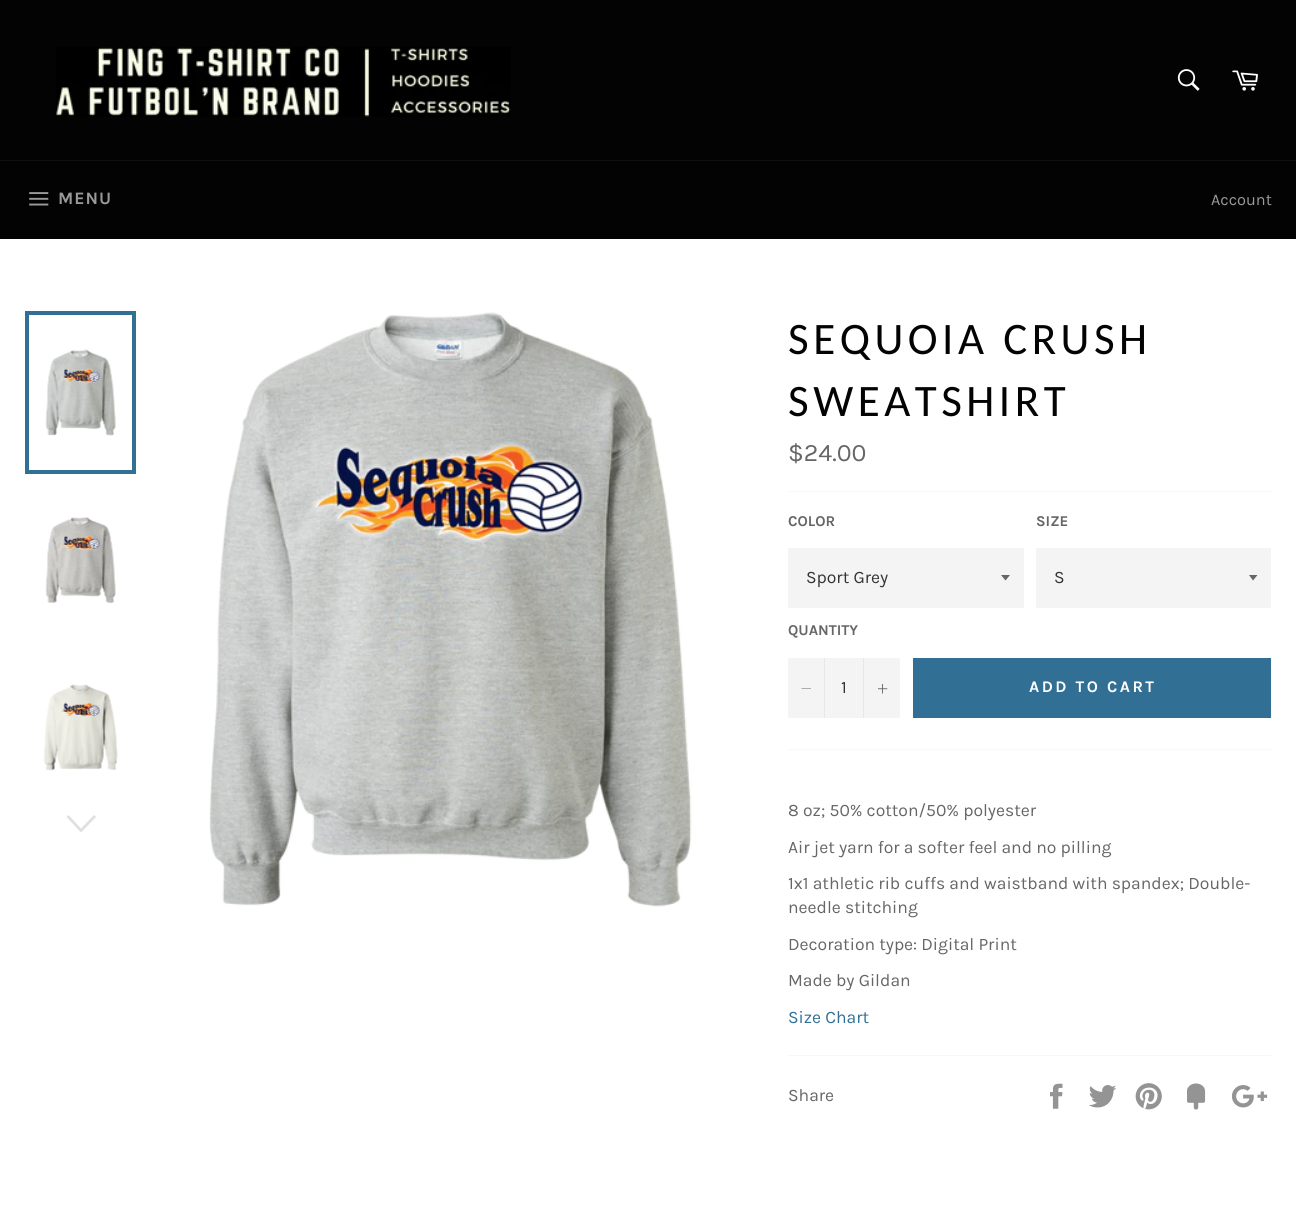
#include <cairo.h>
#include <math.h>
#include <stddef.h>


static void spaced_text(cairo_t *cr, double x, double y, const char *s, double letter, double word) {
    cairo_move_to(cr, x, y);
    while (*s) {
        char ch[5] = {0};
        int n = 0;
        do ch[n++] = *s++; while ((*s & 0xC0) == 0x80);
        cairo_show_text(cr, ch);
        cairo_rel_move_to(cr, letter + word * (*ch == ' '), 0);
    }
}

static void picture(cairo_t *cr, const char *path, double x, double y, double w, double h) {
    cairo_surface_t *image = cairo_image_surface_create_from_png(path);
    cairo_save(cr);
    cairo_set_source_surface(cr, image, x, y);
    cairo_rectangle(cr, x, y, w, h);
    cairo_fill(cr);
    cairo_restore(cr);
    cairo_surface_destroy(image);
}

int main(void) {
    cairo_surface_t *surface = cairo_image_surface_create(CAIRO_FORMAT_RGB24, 1296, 1231);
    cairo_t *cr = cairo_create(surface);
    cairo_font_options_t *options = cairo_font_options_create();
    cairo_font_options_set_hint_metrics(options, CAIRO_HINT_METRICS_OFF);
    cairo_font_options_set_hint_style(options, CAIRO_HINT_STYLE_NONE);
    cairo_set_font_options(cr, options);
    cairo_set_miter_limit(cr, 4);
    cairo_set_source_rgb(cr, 1, 1, 1);
    cairo_paint(cr);
    cairo_set_source_rgb(cr, 0.012, 0.012, 0.012);
    cairo_rectangle(cr, 0, 0, 1296, 160);
    cairo_fill(cr);
    picture(cr, "img1.png", 56, 47, 455, 70);
    picture(cr, "img2.png", 1177, 69, 23, 22);
    picture(cr, "img3.png", 1232, 70, 26, 21);
    cairo_rectangle(cr, 0, 161, 1296, 78);
    cairo_fill(cr);
    cairo_set_source_rgb(cr, 0.063, 0.063, 0.063);
    cairo_rectangle(cr, 0, 160, 1296, 1);
    cairo_fill(cr);
    picture(cr, "img4.png", 29, 192, 20, 14);
    cairo_select_font_face(cr, "Karla", CAIRO_FONT_SLANT_NORMAL, CAIRO_FONT_WEIGHT_BOLD);
    cairo_set_font_size(cr, 17.5);
    cairo_set_source_rgb(cr, 0.604, 0.604, 0.604);
    spaced_text(cr, 58, 204, "MENU", 1, 0);
    cairo_select_font_face(cr, "Karla", CAIRO_FONT_SLANT_NORMAL, CAIRO_FONT_WEIGHT_NORMAL);
    cairo_set_font_size(cr, 16.25);
    cairo_move_to(cr, 1211, 205);
    cairo_show_text(cr, "Account");
    picture(cr, "img5.png", 45, 349, 71, 87);
    cairo_rectangle(cr, 27, 313, 107, 159);
    cairo_set_source_rgb(cr, 0.192, 0.435, 0.584);
    cairo_set_line_width(cr, 4);
    cairo_stroke(cr);
    picture(cr, "img6.png", 45, 517, 71, 87);
    picture(cr, "img7.png", 43, 684, 75, 87);
    cairo_set_source_rgb(cr, 0.878, 0.878, 0.878);
    cairo_new_path(cr);
    cairo_move_to(cr, 94, 815);
    cairo_line_to(cr, 96, 817);
    cairo_line_to(cr, 81, 832.5);
    cairo_line_to(cr, 66.5, 817);
    cairo_line_to(cr, 68.5, 815);
    cairo_line_to(cr, 81, 828.5);
    cairo_close_path(cr);
    cairo_fill(cr);
    picture(cr, "img8.png", 209, 312, 483, 595);
    cairo_select_font_face(cr, "Carlito", CAIRO_FONT_SLANT_NORMAL, CAIRO_FONT_WEIGHT_NORMAL);
    cairo_set_font_size(cr, 45);
    cairo_set_source_rgb(cr, 0.012, 0.012, 0.012);
    spaced_text(cr, 788, 354, "SEQUOIA CRUSH", 4.5, 0);
    spaced_text(cr, 788, 416, "SWEATSHIRT", 4.5, 0);
    cairo_select_font_face(cr, "Karla", CAIRO_FONT_SLANT_NORMAL, CAIRO_FONT_WEIGHT_NORMAL);
    cairo_set_font_size(cr, 25);
    cairo_set_source_rgb(cr, 0.4, 0.4, 0.4);
    cairo_move_to(cr, 788, 461);
    cairo_show_text(cr, "$24.00");
    cairo_set_source_rgb(cr, 0.969, 0.969, 0.969);
    cairo_rectangle(cr, 788, 491, 483, 1);
    cairo_fill(cr);
    cairo_select_font_face(cr, "Karla", CAIRO_FONT_SLANT_NORMAL, CAIRO_FONT_WEIGHT_BOLD);
    cairo_set_font_size(cr, 15);
    cairo_set_source_rgb(cr, 0.4, 0.4, 0.4);
    cairo_move_to(cr, 788, 526);
    cairo_show_text(cr, "COLOR");
    cairo_set_source_rgb(cr, 0.957, 0.957, 0.957);
    cairo_rectangle(cr, 788, 548, 236, 60);
    cairo_fill(cr);
    cairo_set_source_rgb(cr, 0.4, 0.4, 0.4);
    cairo_new_path(cr);
    cairo_move_to(cr, 1001, 575);
    cairo_line_to(cr, 1005.5, 580.5);
    cairo_line_to(cr, 1010, 575);
    cairo_close_path(cr);
    cairo_fill(cr);
    cairo_select_font_face(cr, "Karla", CAIRO_FONT_SLANT_NORMAL, CAIRO_FONT_WEIGHT_NORMAL);
    cairo_set_font_size(cr, 17.5);
    cairo_set_source_rgb(cr, 0.2, 0.2, 0.2);
    cairo_move_to(cr, 806, 583);
    cairo_show_text(cr, "Sport Grey");
    cairo_select_font_face(cr, "Karla", CAIRO_FONT_SLANT_NORMAL, CAIRO_FONT_WEIGHT_BOLD);
    cairo_set_font_size(cr, 15);
    cairo_set_source_rgb(cr, 0.4, 0.4, 0.4);
    cairo_move_to(cr, 1036, 526);
    cairo_show_text(cr, "SIZE");
    cairo_set_source_rgb(cr, 0.957, 0.957, 0.957);
    cairo_rectangle(cr, 1036, 548, 235, 60);
    cairo_fill(cr);
    cairo_set_source_rgb(cr, 0.4, 0.4, 0.4);
    cairo_new_path(cr);
    cairo_move_to(cr, 1249, 575);
    cairo_line_to(cr, 1253, 580.5);
    cairo_line_to(cr, 1257.5, 575);
    cairo_close_path(cr);
    cairo_fill(cr);
    cairo_select_font_face(cr, "Karla", CAIRO_FONT_SLANT_NORMAL, CAIRO_FONT_WEIGHT_NORMAL);
    cairo_set_font_size(cr, 17.5);
    cairo_set_source_rgb(cr, 0.2, 0.2, 0.2);
    cairo_move_to(cr, 1054, 583);
    cairo_show_text(cr, "S");
    cairo_select_font_face(cr, "Karla", CAIRO_FONT_SLANT_NORMAL, CAIRO_FONT_WEIGHT_BOLD);
    cairo_set_font_size(cr, 15);
    cairo_set_source_rgb(cr, 0.4, 0.4, 0.4);
    cairo_move_to(cr, 788, 635);
    cairo_show_text(cr, "QUANTITY");
    cairo_set_source_rgb(cr, 0.957, 0.957, 0.957);
    cairo_rectangle(cr, 788, 658, 112, 60);
    cairo_fill(cr);
    cairo_set_source_rgb(cr, 0.906, 0.906, 0.906);
    cairo_rectangle(cr, 824, 658, 1, 60);
    cairo_fill(cr);
    cairo_set_source_rgb(cr, 0.4, 0.4, 0.4);
    cairo_set_fill_rule(cr, CAIRO_FILL_RULE_EVEN_ODD);
    cairo_new_path(cr);
    cairo_move_to(cr, 811, 688.5);
    cairo_line_to(cr, 811, 689);
    cairo_line_to(cr, 801.5, 689);
    cairo_line_to(cr, 801.5, 688.5);
    cairo_close_path(cr);
    cairo_fill(cr);
    cairo_select_font_face(cr, "Karla", CAIRO_FONT_SLANT_NORMAL, CAIRO_FONT_WEIGHT_NORMAL);
    cairo_set_font_size(cr, 17.5);
    cairo_set_source_rgb(cr, 0.2, 0.2, 0.2);
    cairo_move_to(cr, 841, 693);
    cairo_show_text(cr, "1");
    cairo_set_source_rgb(cr, 0.906, 0.906, 0.906);
    cairo_rectangle(cr, 863, 658, 1, 60);
    cairo_fill(cr);
    picture(cr, "img9.png", 878, 684, 10, 10);
    cairo_set_source_rgb(cr, 0.192, 0.435, 0.584);
    cairo_rectangle(cr, 913, 658, 358, 60);
    cairo_fill(cr);
    cairo_select_font_face(cr, "Karla", CAIRO_FONT_SLANT_NORMAL, CAIRO_FONT_WEIGHT_BOLD);
    cairo_set_font_size(cr, 16.25);
    cairo_set_source_rgb(cr, 1, 1, 1);
    spaced_text(cr, 1029, 692, "ADD TO CART", 2.5, 0);
    cairo_set_source_rgb(cr, 0.969, 0.969, 0.969);
    cairo_rectangle(cr, 788, 749, 483, 1);
    cairo_fill(cr);
    cairo_select_font_face(cr, "Karla", CAIRO_FONT_SLANT_NORMAL, CAIRO_FONT_WEIGHT_NORMAL);
    cairo_set_font_size(cr, 17.5);
    cairo_set_source_rgb(cr, 0.4, 0.4, 0.4);
    cairo_move_to(cr, 788, 816);
    cairo_show_text(cr, "8 oz; 50% cotton/50% polyester");
    cairo_move_to(cr, 788, 853);
    cairo_show_text(cr, "Air jet yarn for a softer feel and no pilling");
    cairo_move_to(cr, 788, 889);
    cairo_show_text(cr, "1x1 athletic rib cuffs and waistband with spandex; Double-");
    cairo_move_to(cr, 788, 913);
    cairo_show_text(cr, "needle stitching");
    cairo_move_to(cr, 788, 950);
    cairo_show_text(cr, "Decoration type: Digital Print");
    cairo_move_to(cr, 788, 986);
    cairo_show_text(cr, "Made by Gildan");
    cairo_set_source_rgb(cr, 0.192, 0.435, 0.584);
    cairo_move_to(cr, 788, 1023);
    cairo_show_text(cr, "Size Chart");
    cairo_set_source_rgb(cr, 0.969, 0.969, 0.969);
    cairo_rectangle(cr, 788, 1055, 483, 1);
    cairo_fill(cr);
    cairo_set_source_rgb(cr, 0.4, 0.4, 0.4);
    cairo_move_to(cr, 788, 1101);
    cairo_show_text(cr, "Share");
    picture(cr, "img10.png", 1050, 1083, 13, 26);
    picture(cr, "img11.png", 1089, 1085, 28, 23);
    picture(cr, "img12.png", 1135, 1083, 27, 27);
    picture(cr, "img13.png", 1187, 1083, 19, 27);
    picture(cr, "img14.png", 1231, 1085, 37, 23);
    cairo_surface_write_to_png(surface, "page.png");
    cairo_font_options_destroy(options);
    cairo_destroy(cr);
    cairo_surface_destroy(surface);
    return 0;
}
